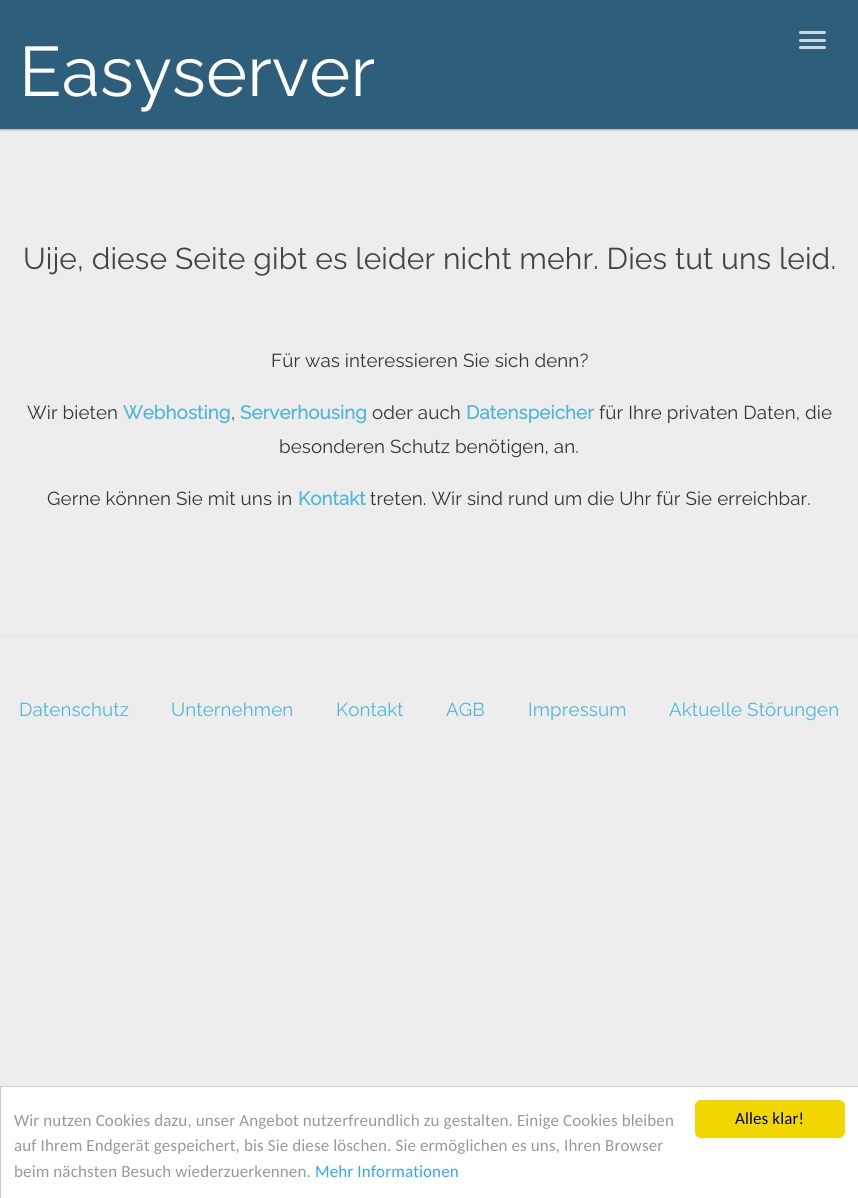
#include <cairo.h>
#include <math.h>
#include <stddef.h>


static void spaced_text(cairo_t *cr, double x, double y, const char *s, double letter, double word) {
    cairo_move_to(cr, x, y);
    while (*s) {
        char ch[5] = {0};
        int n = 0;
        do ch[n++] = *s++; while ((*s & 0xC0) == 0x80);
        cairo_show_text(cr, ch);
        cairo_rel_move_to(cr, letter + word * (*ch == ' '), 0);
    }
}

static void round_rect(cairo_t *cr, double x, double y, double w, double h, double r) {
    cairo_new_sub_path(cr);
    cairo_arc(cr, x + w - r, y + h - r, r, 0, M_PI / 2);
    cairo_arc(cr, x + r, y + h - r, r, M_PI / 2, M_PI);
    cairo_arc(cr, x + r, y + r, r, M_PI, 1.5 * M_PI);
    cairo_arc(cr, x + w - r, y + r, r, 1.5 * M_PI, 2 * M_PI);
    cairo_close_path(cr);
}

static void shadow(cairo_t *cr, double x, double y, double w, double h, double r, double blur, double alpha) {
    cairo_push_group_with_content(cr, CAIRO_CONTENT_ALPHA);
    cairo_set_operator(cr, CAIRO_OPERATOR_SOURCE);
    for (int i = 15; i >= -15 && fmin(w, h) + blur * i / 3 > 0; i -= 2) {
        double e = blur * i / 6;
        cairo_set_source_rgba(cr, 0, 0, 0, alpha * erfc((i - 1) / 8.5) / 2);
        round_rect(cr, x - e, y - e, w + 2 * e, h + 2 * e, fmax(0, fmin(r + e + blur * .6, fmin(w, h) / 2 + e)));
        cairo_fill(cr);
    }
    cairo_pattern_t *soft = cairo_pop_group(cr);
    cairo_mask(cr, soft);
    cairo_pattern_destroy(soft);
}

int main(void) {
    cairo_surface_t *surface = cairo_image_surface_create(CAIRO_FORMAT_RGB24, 858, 1198);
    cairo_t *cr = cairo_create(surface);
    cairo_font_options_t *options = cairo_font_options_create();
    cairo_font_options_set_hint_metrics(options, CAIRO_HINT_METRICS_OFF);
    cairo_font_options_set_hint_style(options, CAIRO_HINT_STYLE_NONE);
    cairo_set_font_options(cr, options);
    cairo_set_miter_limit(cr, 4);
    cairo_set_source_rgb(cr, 0.929, 0.929, 0.929);
    cairo_paint(cr);
    cairo_set_source_rgb(cr, 0, 0, 0);
    shadow(cr, 0, 1, 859, 129, 0, 1, 0.3);
    cairo_set_source_rgb(cr, 0.176, 0.373, 0.486);
    cairo_rectangle(cr, 0, 0, 858, 129);
    cairo_fill(cr);
    cairo_set_source_rgb(cr, 0.796, 0.843, 0.871);
    round_rect(cr, 799, 31, 27, 3, 1.5);
    cairo_fill(cr);
    round_rect(cr, 799, 39, 27, 3, 1.5);
    cairo_fill(cr);
    round_rect(cr, 799, 46, 27, 3, 1.5);
    cairo_fill(cr);
    cairo_select_font_face(cr, "Raleway Thin", CAIRO_FONT_SLANT_NORMAL, CAIRO_FONT_WEIGHT_NORMAL);
    cairo_set_font_size(cr, 70);
    cairo_set_source_rgb(cr, 1, 1, 1);
    spaced_text(cr, 19, 96, "Easyserver", 0.12, 0);
    cairo_set_font_size(cr, 30);
    cairo_set_source_rgb(cr, 0.267, 0.267, 0.267);
    spaced_text(cr, 23, 269, "Uije, diese Seite gibt es leider nicht mehr. Dies tut uns leid.", 0.12, 0);
    cairo_set_font_size(cr, 18.75);
    cairo_set_source_rgb(cr, 0.2, 0.2, 0.2);
    spaced_text(cr, 271, 367, "Für was interessieren Sie sich denn?", 0.12, 0);
    spaced_text(cr, 27, 419, "Wir bieten", 0.12, 0);
    cairo_select_font_face(cr, "Raleway", CAIRO_FONT_SLANT_NORMAL, CAIRO_FONT_WEIGHT_BOLD);
    cairo_set_source_rgb(cr, 0.306, 0.714, 0.847);
    spaced_text(cr, 123, 419, "Webhosting", 0.12, 0);
    cairo_select_font_face(cr, "Raleway Thin", CAIRO_FONT_SLANT_NORMAL, CAIRO_FONT_WEIGHT_NORMAL);
    cairo_set_source_rgb(cr, 0.2, 0.2, 0.2);
    spaced_text(cr, 231, 419, ",", 0.12, 0);
    cairo_select_font_face(cr, "Raleway", CAIRO_FONT_SLANT_NORMAL, CAIRO_FONT_WEIGHT_BOLD);
    cairo_set_source_rgb(cr, 0.306, 0.714, 0.847);
    spaced_text(cr, 240, 419, "Serverhousing", 0.12, 0);
    cairo_select_font_face(cr, "Raleway Thin", CAIRO_FONT_SLANT_NORMAL, CAIRO_FONT_WEIGHT_NORMAL);
    cairo_set_source_rgb(cr, 0.2, 0.2, 0.2);
    spaced_text(cr, 372, 419, "oder auch", 0.12, 0);
    cairo_select_font_face(cr, "Raleway", CAIRO_FONT_SLANT_NORMAL, CAIRO_FONT_WEIGHT_BOLD);
    cairo_set_source_rgb(cr, 0.306, 0.714, 0.847);
    spaced_text(cr, 466, 419, "Datenspeicher", 0.12, 0);
    cairo_select_font_face(cr, "Raleway Thin", CAIRO_FONT_SLANT_NORMAL, CAIRO_FONT_WEIGHT_NORMAL);
    cairo_set_source_rgb(cr, 0.2, 0.2, 0.2);
    spaced_text(cr, 599, 419, "für Ihre privaten Daten, die", 0.12, 0);
    spaced_text(cr, 279, 453, "besonderen Schutz benötigen, an.", 0.12, 0);
    spaced_text(cr, 47, 505, "Gerne können Sie mit uns in", 0.12, 0);
    cairo_select_font_face(cr, "Raleway", CAIRO_FONT_SLANT_NORMAL, CAIRO_FONT_WEIGHT_BOLD);
    cairo_set_source_rgb(cr, 0.306, 0.714, 0.847);
    spaced_text(cr, 298, 505, "Kontakt", 0.12, 0);
    cairo_select_font_face(cr, "Raleway Thin", CAIRO_FONT_SLANT_NORMAL, CAIRO_FONT_WEIGHT_NORMAL);
    cairo_set_source_rgb(cr, 0.2, 0.2, 0.2);
    spaced_text(cr, 370, 505, "treten. Wir sind rund um die Uhr für Sie erreichbar.", 0.12, 0);
    cairo_set_source_rgb(cr, 0.898, 0.898, 0.898);
    cairo_rectangle(cr, 0, 635, 858, 1);
    cairo_fill(cr);
    cairo_set_source_rgb(cr, 0.306, 0.714, 0.847);
    spaced_text(cr, 19, 716, "Datenschutz", 0.12, 0);
    spaced_text(cr, 171, 716, "Unternehmen", 0.12, 0);
    spaced_text(cr, 336, 716, "Kontakt", 0.12, 0);
    spaced_text(cr, 446, 716, "AGB", 0.12, 0);
    spaced_text(cr, 528, 716, "Impressum", 0.12, 0);
    spaced_text(cr, 669, 716, "Aktuelle Störungen", 0.12, 0);
    cairo_set_source_rgb(cr, 1, 1, 1);
    cairo_rectangle(cr, 0.5, 1086.5, 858, 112);
    cairo_fill_preserve(cr);
    cairo_set_source_rgb(cr, 0.8, 0.8, 0.8);
    cairo_set_line_width(cr, 1);
    cairo_stroke(cr);
    cairo_select_font_face(cr, "Carlito", CAIRO_FONT_SLANT_NORMAL, CAIRO_FONT_WEIGHT_NORMAL);
    cairo_set_font_size(cr, 17);
    cairo_set_source_rgb(cr, 0.6, 0.6, 0.6);
    spaced_text(cr, 14, 1126, "Wir nutzen Cookies dazu, unser Angebot nutzerfreundlich zu gestalten. Einige Cookies bleiben", 0.12, 0);
    spaced_text(cr, 14, 1151, "auf Ihrem Endgerät gespeichert, bis Sie diese löschen. Sie ermöglichen es uns, Ihren Browser", 0.12, 0);
    spaced_text(cr, 14, 1177, "beim nächsten Besuch wiederzuerkennen.", 0.12, 0);
    cairo_set_source_rgb(cr, 0.192, 0.659, 0.941);
    spaced_text(cr, 315, 1177, "Mehr Informationen", 0.12, 0);
    cairo_set_source_rgb(cr, 0.945, 0.839, 0);
    round_rect(cr, 695, 1100, 150, 38, 6);
    cairo_fill(cr);
    cairo_set_source_rgb(cr, 0, 0, 0);
    spaced_text(cr, 735, 1124, "Alles klar!", 0.12, 0);
    cairo_surface_write_to_png(surface, "page.png");
    cairo_font_options_destroy(options);
    cairo_destroy(cr);
    cairo_surface_destroy(surface);
    return 0;
}
